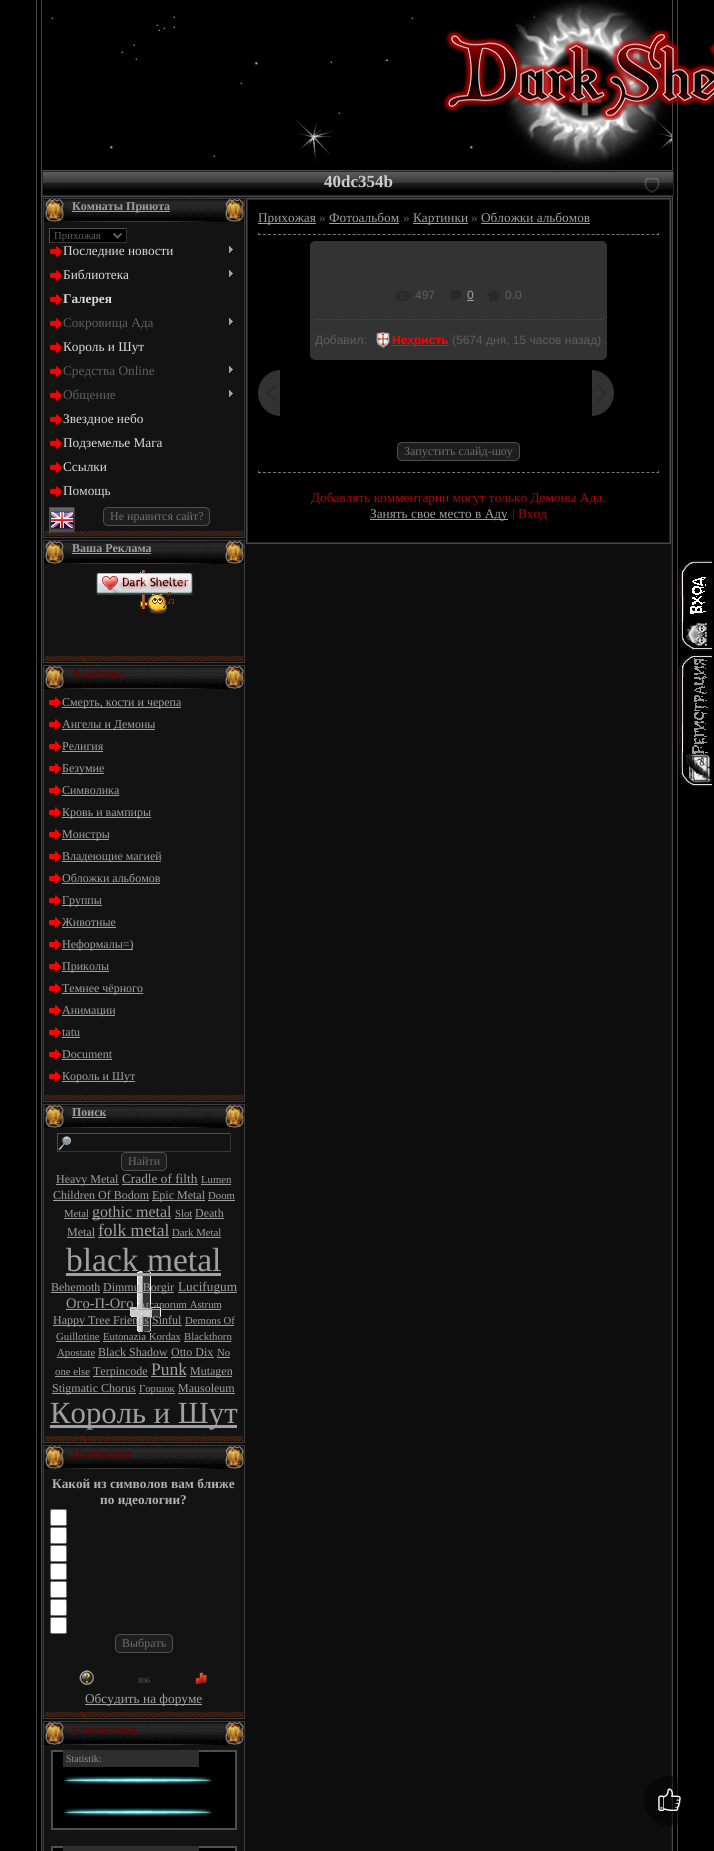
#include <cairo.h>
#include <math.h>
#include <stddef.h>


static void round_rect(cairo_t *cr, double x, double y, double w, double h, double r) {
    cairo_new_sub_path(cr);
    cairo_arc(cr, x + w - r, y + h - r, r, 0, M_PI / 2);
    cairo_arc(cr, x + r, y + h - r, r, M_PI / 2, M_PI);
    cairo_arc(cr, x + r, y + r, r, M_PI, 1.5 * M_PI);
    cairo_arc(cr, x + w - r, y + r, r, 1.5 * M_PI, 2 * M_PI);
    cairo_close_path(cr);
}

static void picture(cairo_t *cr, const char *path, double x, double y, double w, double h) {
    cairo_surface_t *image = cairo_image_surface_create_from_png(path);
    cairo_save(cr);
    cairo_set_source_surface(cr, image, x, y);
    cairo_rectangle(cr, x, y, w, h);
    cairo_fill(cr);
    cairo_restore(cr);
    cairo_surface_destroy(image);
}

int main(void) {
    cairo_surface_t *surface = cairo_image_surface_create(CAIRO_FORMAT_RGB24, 714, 1851);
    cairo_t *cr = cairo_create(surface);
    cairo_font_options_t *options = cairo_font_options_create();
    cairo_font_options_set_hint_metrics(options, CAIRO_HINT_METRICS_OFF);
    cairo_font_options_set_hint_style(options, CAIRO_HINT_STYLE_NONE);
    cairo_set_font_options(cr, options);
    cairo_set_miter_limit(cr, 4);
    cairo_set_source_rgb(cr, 0, 0, 0);
    cairo_paint(cr);
    picture(cr, "img1.png", 36, 0, 642, 1851);
    picture(cr, "img2.png", 51, 16, 621, 147);
    cairo_set_source_rgb(cr, 0.286, 0.286, 0.286);
    cairo_rectangle(cr, 42, 170, 630, 1);
    cairo_fill(cr);
    picture(cr, "img3.png", 505, 0, 165, 169);
    picture(cr, "img4.png", 444, 30, 270, 90);
    picture(cr, "img5.png", 43, 172, 630, 23);
    cairo_rectangle(cr, 42.5, 171.5, 631, 24);
    cairo_set_source_rgb(cr, 0.149, 0.149, 0.149);
    cairo_set_line_width(cr, 1);
    cairo_stroke(cr);
    cairo_select_font_face(cr, "Liberation Serif", CAIRO_FONT_SLANT_NORMAL, CAIRO_FONT_WEIGHT_BOLD);
    cairo_set_font_size(cr, 17);
    cairo_set_source_rgb(cr, 0.8, 0.8, 0.8);
    cairo_move_to(cr, 324, 187);
    cairo_show_text(cr, "40dc354b");
    picture(cr, "img6.png", 644, 177, 16, 16);
    cairo_set_source_rgb(cr, 0.286, 0.286, 0.286);
    cairo_rectangle(cr, 42, 196, 630, 1);
    cairo_fill(cr);
    cairo_set_source_rgb(cr, 0.055, 0.055, 0.055);
    cairo_rectangle(cr, 42.5, 197.5, 629, 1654);
    cairo_fill_preserve(cr);
    cairo_set_source_rgb(cr, 0.102, 0.102, 0.102);
    cairo_stroke(cr);
    cairo_rectangle(cr, 43.5, 198.5, 201, 339);
    cairo_set_source_rgb(cr, 0.235, 0.235, 0.235);
    cairo_stroke(cr);
    picture(cr, "img7.png", 44, 199, 200, 23);
    cairo_set_source_rgb(cr, 0.627, 0.627, 0.627);
    cairo_rectangle(cr, 72, 211, 98, 1);
    cairo_fill(cr);
    cairo_set_font_size(cr, 12);
    cairo_move_to(cr, 72, 210);
    cairo_show_text(cr, "Комнаты Приюта");
    cairo_set_source_rgb(cr, 0.075, 0.075, 0.075);
    cairo_rectangle(cr, 44, 222, 200, 309);
    cairo_fill(cr);
    cairo_set_source_rgb(cr, 0, 0, 0);
    cairo_rectangle(cr, 50, 229, 76, 13);
    cairo_fill(cr);
    cairo_set_source_rgb(cr, 0.31, 0.31, 0.31);
    cairo_rectangle(cr, 49, 228, 78, 1);
    cairo_fill(cr);
    cairo_set_source_rgb(cr, 0.208, 0.208, 0.208);
    cairo_rectangle(cr, 126, 228, 1, 15);
    cairo_fill(cr);
    cairo_rectangle(cr, 49, 242, 78, 1);
    cairo_fill(cr);
    cairo_set_source_rgb(cr, 0.31, 0.31, 0.31);
    cairo_rectangle(cr, 49, 228, 1, 15);
    cairo_fill(cr);
    cairo_new_path(cr);
    cairo_move_to(cr, 113.5, 233.5);
    cairo_line_to(cr, 117.5, 237.5);
    cairo_line_to(cr, 121.5, 233.5);
    cairo_set_source_rgb(cr, 0.369, 0.369, 0.369);
    cairo_set_line_width(cr, 2);
    cairo_stroke(cr);
    cairo_select_font_face(cr, "Liberation Serif", CAIRO_FONT_SLANT_NORMAL, CAIRO_FONT_WEIGHT_NORMAL);
    cairo_set_font_size(cr, 10.75);
    cairo_move_to(cr, 54, 239);
    cairo_show_text(cr, "Прихожая");
    picture(cr, "img8.png", 50, 246, 12, 11);
    cairo_set_font_size(cr, 13.3);
    cairo_set_source_rgb(cr, 0.855, 0.855, 0.855);
    cairo_move_to(cr, 63, 255);
    cairo_show_text(cr, "Последние новости");
    picture(cr, "img9.png", 229, 246, 4, 7);
    picture(cr, "img8.png", 50, 270, 12, 11);
    cairo_move_to(cr, 63, 279);
    cairo_show_text(cr, "Библиотека");
    picture(cr, "img9.png", 229, 270, 4, 7);
    picture(cr, "img8.png", 50, 294, 12, 11);
    cairo_select_font_face(cr, "Liberation Serif", CAIRO_FONT_SLANT_NORMAL, CAIRO_FONT_WEIGHT_BOLD);
    cairo_move_to(cr, 63, 303);
    cairo_show_text(cr, "Галерея");
    picture(cr, "img8.png", 50, 318, 12, 11);
    cairo_select_font_face(cr, "Liberation Serif", CAIRO_FONT_SLANT_NORMAL, CAIRO_FONT_WEIGHT_NORMAL);
    cairo_set_source_rgb(cr, 0.369, 0.369, 0.369);
    cairo_move_to(cr, 63, 327);
    cairo_show_text(cr, "Сокровища Ада");
    picture(cr, "img9.png", 229, 318, 4, 7);
    picture(cr, "img8.png", 50, 342, 12, 11);
    cairo_set_source_rgb(cr, 0.855, 0.855, 0.855);
    cairo_move_to(cr, 63, 351);
    cairo_show_text(cr, "Король и Шут");
    picture(cr, "img8.png", 50, 366, 12, 11);
    cairo_set_source_rgb(cr, 0.369, 0.369, 0.369);
    cairo_move_to(cr, 63, 375);
    cairo_show_text(cr, "Средства Online");
    picture(cr, "img9.png", 229, 366, 4, 7);
    picture(cr, "img8.png", 50, 390, 12, 11);
    cairo_move_to(cr, 63, 399);
    cairo_show_text(cr, "Общение");
    picture(cr, "img9.png", 229, 390, 4, 7);
    picture(cr, "img8.png", 50, 414, 12, 11);
    cairo_set_source_rgb(cr, 0.855, 0.855, 0.855);
    cairo_move_to(cr, 63, 423);
    cairo_show_text(cr, "Звездное небо");
    picture(cr, "img8.png", 50, 438, 12, 11);
    cairo_move_to(cr, 63, 447);
    cairo_show_text(cr, "Подземелье Мага");
    picture(cr, "img8.png", 50, 462, 12, 11);
    cairo_move_to(cr, 63, 471);
    cairo_show_text(cr, "Ссылки");
    picture(cr, "img8.png", 50, 486, 12, 11);
    cairo_move_to(cr, 63, 495);
    cairo_show_text(cr, "Помощь");
    picture(cr, "img12.png", 44, 531, 200, 6);
    cairo_set_source_rgb(cr, 0.302, 0.302, 0.302);
    cairo_rectangle(cr, 50, 526, 24, 6);
    cairo_fill(cr);
    picture(cr, "img10.png", 50, 508, 24, 22);
    cairo_set_source_rgb(cr, 0.31, 0.31, 0.31);
    cairo_rectangle(cr, 49, 507, 26, 1);
    cairo_fill(cr);
    cairo_set_source_rgb(cr, 0.208, 0.208, 0.208);
    cairo_rectangle(cr, 74, 507, 1, 26);
    cairo_fill(cr);
    cairo_rectangle(cr, 49, 532, 26, 1);
    cairo_fill(cr);
    cairo_set_source_rgb(cr, 0.31, 0.31, 0.31);
    cairo_rectangle(cr, 49, 507, 1, 26);
    cairo_fill(cr);
    picture(cr, "img11.png", 50, 511, 24, 19);
    cairo_set_source_rgb(cr, 0.118, 0.118, 0.118);
    round_rect(cr, 103.5, 507.5, 106, 18, 4.5);
    cairo_fill_preserve(cr);
    cairo_set_source_rgb(cr, 0.31, 0.31, 0.31);
    cairo_set_line_width(cr, 1);
    cairo_stroke(cr);
    cairo_set_font_size(cr, 12);
    cairo_set_source_rgb(cr, 0.427, 0.427, 0.427);
    cairo_move_to(cr, 110, 520);
    cairo_show_text(cr, "Не нравится сайт?");
    cairo_rectangle(cr, 43.5, 540.5, 201, 122);
    cairo_set_source_rgb(cr, 0.235, 0.235, 0.235);
    cairo_stroke(cr);
    picture(cr, "img7.png", 44, 541, 200, 23);
    cairo_select_font_face(cr, "Liberation Serif", CAIRO_FONT_SLANT_NORMAL, CAIRO_FONT_WEIGHT_BOLD);
    cairo_set_source_rgb(cr, 0.627, 0.627, 0.627);
    cairo_move_to(cr, 72, 552);
    cairo_show_text(cr, "Ваша Реклама");
    cairo_rectangle(cr, 72, 553, 79, 1);
    cairo_fill(cr);
    cairo_set_source_rgb(cr, 0.075, 0.075, 0.075);
    cairo_rectangle(cr, 44, 564, 200, 92);
    cairo_fill(cr);
    picture(cr, "img13.png", 96, 570, 97, 44);
    picture(cr, "img12.png", 44, 656, 200, 6);
    cairo_rectangle(cr, 43.5, 665.5, 201, 436);
    cairo_set_source_rgb(cr, 0.235, 0.235, 0.235);
    cairo_stroke(cr);
    picture(cr, "img7.png", 44, 666, 200, 23);
    cairo_set_source_rgb(cr, 0.412, 0, 0);
    cairo_move_to(cr, 72, 677);
    cairo_show_text(cr, "Альбомы");
    cairo_set_source_rgb(cr, 0.075, 0.075, 0.075);
    cairo_rectangle(cr, 44, 689, 200, 406);
    cairo_fill(cr);
    picture(cr, "img8.png", 49, 697, 12, 11);
    cairo_set_source_rgb(cr, 0.627, 0.627, 0.627);
    cairo_rectangle(cr, 62, 707, 119, 1);
    cairo_fill(cr);
    cairo_select_font_face(cr, "Liberation Serif", CAIRO_FONT_SLANT_NORMAL, CAIRO_FONT_WEIGHT_NORMAL);
    cairo_move_to(cr, 62, 706);
    cairo_show_text(cr, "Смерть, кости и черепа");
    picture(cr, "img8.png", 49, 719, 12, 11);
    cairo_rectangle(cr, 62, 729, 93, 1);
    cairo_fill(cr);
    cairo_move_to(cr, 62, 728);
    cairo_show_text(cr, "Ангелы и Демоны");
    picture(cr, "img8.png", 49, 741, 12, 11);
    cairo_move_to(cr, 62, 750);
    cairo_show_text(cr, "Религия");
    cairo_rectangle(cr, 62, 751, 41, 1);
    cairo_fill(cr);
    picture(cr, "img8.png", 49, 763, 12, 11);
    cairo_rectangle(cr, 62, 773, 42, 1);
    cairo_fill(cr);
    cairo_move_to(cr, 62, 772);
    cairo_show_text(cr, "Безумие");
    picture(cr, "img8.png", 49, 785, 12, 11);
    cairo_move_to(cr, 62, 794);
    cairo_show_text(cr, "Символика");
    cairo_rectangle(cr, 62, 795, 57, 1);
    cairo_fill(cr);
    picture(cr, "img8.png", 49, 807, 12, 11);
    cairo_rectangle(cr, 62, 817, 89, 1);
    cairo_fill(cr);
    cairo_move_to(cr, 62, 816);
    cairo_show_text(cr, "Кровь и вампиры");
    picture(cr, "img8.png", 49, 829, 12, 11);
    cairo_rectangle(cr, 62, 839, 47, 1);
    cairo_fill(cr);
    cairo_move_to(cr, 62, 838);
    cairo_show_text(cr, "Монстры");
    picture(cr, "img8.png", 49, 851, 12, 11);
    cairo_rectangle(cr, 62, 861, 99, 1);
    cairo_fill(cr);
    cairo_move_to(cr, 62, 860);
    cairo_show_text(cr, "Владеющие магией");
    picture(cr, "img8.png", 49, 873, 12, 11);
    cairo_move_to(cr, 62, 882);
    cairo_show_text(cr, "Обложки альбомов");
    cairo_rectangle(cr, 62, 883, 98, 1);
    cairo_fill(cr);
    picture(cr, "img8.png", 49, 895, 12, 11);
    cairo_rectangle(cr, 62, 905, 40, 1);
    cairo_fill(cr);
    cairo_move_to(cr, 62, 904);
    cairo_show_text(cr, "Группы");
    picture(cr, "img8.png", 49, 917, 12, 11);
    cairo_move_to(cr, 62, 926);
    cairo_show_text(cr, "Животные");
    cairo_rectangle(cr, 62, 927, 54, 1);
    cairo_fill(cr);
    picture(cr, "img8.png", 49, 939, 12, 11);
    cairo_rectangle(cr, 62, 949, 71, 1);
    cairo_fill(cr);
    cairo_move_to(cr, 62, 948);
    cairo_show_text(cr, "Неформалы=)");
    picture(cr, "img8.png", 49, 961, 12, 11);
    cairo_rectangle(cr, 62, 971, 47, 1);
    cairo_fill(cr);
    cairo_move_to(cr, 62, 970);
    cairo_show_text(cr, "Приколы");
    picture(cr, "img8.png", 49, 983, 12, 11);
    cairo_rectangle(cr, 62, 993, 81, 1);
    cairo_fill(cr);
    cairo_move_to(cr, 62, 992);
    cairo_show_text(cr, "Темнее чёрного");
    picture(cr, "img8.png", 49, 1005, 12, 11);
    cairo_rectangle(cr, 62, 1015, 53, 1);
    cairo_fill(cr);
    cairo_move_to(cr, 62, 1014);
    cairo_show_text(cr, "Анимации");
    picture(cr, "img8.png", 49, 1027, 12, 11);
    cairo_move_to(cr, 62, 1036);
    cairo_show_text(cr, "tatu");
    cairo_rectangle(cr, 62, 1037, 18, 1);
    cairo_fill(cr);
    picture(cr, "img8.png", 49, 1049, 12, 11);
    cairo_move_to(cr, 62, 1058);
    cairo_show_text(cr, "Document");
    cairo_rectangle(cr, 62, 1059, 50, 1);
    cairo_fill(cr);
    picture(cr, "img8.png", 49, 1071, 12, 11);
    cairo_rectangle(cr, 62, 1081, 73, 1);
    cairo_fill(cr);
    cairo_move_to(cr, 62, 1080);
    cairo_show_text(cr, "Король и Шут");
    picture(cr, "img12.png", 44, 1095, 200, 6);
    cairo_rectangle(cr, 43.5, 1104.5, 201, 338);
    cairo_set_source_rgb(cr, 0.235, 0.235, 0.235);
    cairo_stroke(cr);
    picture(cr, "img7.png", 44, 1105, 200, 23);
    cairo_select_font_face(cr, "Liberation Serif", CAIRO_FONT_SLANT_NORMAL, CAIRO_FONT_WEIGHT_BOLD);
    cairo_set_source_rgb(cr, 0.627, 0.627, 0.627);
    cairo_move_to(cr, 72, 1116);
    cairo_show_text(cr, "Поиск");
    cairo_rectangle(cr, 72, 1117, 34, 1);
    cairo_fill(cr);
    cairo_set_source_rgb(cr, 0.075, 0.075, 0.075);
    cairo_rectangle(cr, 44, 1128, 200, 308);
    cairo_fill(cr);
    picture(cr, "img14.png", 58, 1135, 14, 15);
    cairo_set_source_rgb(cr, 0.31, 0.31, 0.31);
    cairo_rectangle(cr, 57, 1133, 174, 1);
    cairo_fill(cr);
    cairo_set_source_rgb(cr, 0.208, 0.208, 0.208);
    cairo_rectangle(cr, 230, 1133, 1, 19);
    cairo_fill(cr);
    cairo_rectangle(cr, 57, 1151, 174, 1);
    cairo_fill(cr);
    cairo_set_source_rgb(cr, 0.31, 0.31, 0.31);
    cairo_rectangle(cr, 57, 1133, 1, 19);
    cairo_fill(cr);
    cairo_set_source_rgb(cr, 0.118, 0.118, 0.118);
    round_rect(cr, 121.5, 1152.5, 45, 18, 4.5);
    cairo_fill_preserve(cr);
    cairo_set_source_rgb(cr, 0.31, 0.31, 0.31);
    cairo_stroke(cr);
    cairo_select_font_face(cr, "Liberation Serif", CAIRO_FONT_SLANT_NORMAL, CAIRO_FONT_WEIGHT_NORMAL);
    cairo_set_source_rgb(cr, 0.427, 0.427, 0.427);
    cairo_move_to(cr, 128, 1165);
    cairo_show_text(cr, "Найти");
    picture(cr, "img15.png", 130, 1271, 31, 61);
    cairo_set_source_rgb(cr, 0.627, 0.627, 0.627);
    cairo_rectangle(cr, 56, 1184, 63, 1);
    cairo_fill(cr);
    cairo_move_to(cr, 56, 1183);
    cairo_show_text(cr, "Heavy Metal");
    cairo_rectangle(cr, 122, 1184, 76, 1);
    cairo_fill(cr);
    cairo_set_font_size(cr, 13.3);
    cairo_move_to(cr, 122, 1183);
    cairo_show_text(cr, "Cradle of filth");
    cairo_set_font_size(cr, 10.75);
    cairo_move_to(cr, 201, 1183);
    cairo_show_text(cr, "Lumen");
    cairo_rectangle(cr, 201, 1184, 30, 1);
    cairo_fill(cr);
    cairo_set_font_size(cr, 12);
    cairo_move_to(cr, 53, 1199);
    cairo_show_text(cr, "Children Of Bodom");
    cairo_rectangle(cr, 53, 1200, 96, 1);
    cairo_fill(cr);
    cairo_rectangle(cr, 152, 1200, 53, 1);
    cairo_fill(cr);
    cairo_move_to(cr, 152, 1199);
    cairo_show_text(cr, "Epic Metal");
    cairo_set_font_size(cr, 10.75);
    cairo_move_to(cr, 208, 1199);
    cairo_show_text(cr, "Doom");
    cairo_rectangle(cr, 208, 1200, 27, 1);
    cairo_fill(cr);
    cairo_move_to(cr, 64, 1217);
    cairo_show_text(cr, "Metal");
    cairo_rectangle(cr, 64, 1218, 24, 1);
    cairo_fill(cr);
    cairo_rectangle(cr, 92, 1218, 79, 1);
    cairo_fill(cr);
    cairo_set_font_size(cr, 16);
    cairo_move_to(cr, 92, 1217);
    cairo_show_text(cr, "gothic metal");
    cairo_set_font_size(cr, 10.75);
    cairo_move_to(cr, 175, 1217);
    cairo_show_text(cr, "Slot");
    cairo_rectangle(cr, 175, 1218, 17, 1);
    cairo_fill(cr);
    cairo_set_font_size(cr, 12);
    cairo_move_to(cr, 195, 1217);
    cairo_show_text(cr, "Death");
    cairo_rectangle(cr, 195, 1218, 29, 1);
    cairo_fill(cr);
    cairo_move_to(cr, 67, 1236);
    cairo_show_text(cr, "Metal");
    cairo_rectangle(cr, 67, 1237, 28, 1);
    cairo_fill(cr);
    cairo_set_font_size(cr, 17.5);
    cairo_move_to(cr, 98, 1236);
    cairo_show_text(cr, "folk metal");
    cairo_set_font_size(cr, 10.75);
    cairo_move_to(cr, 172, 1236);
    cairo_show_text(cr, "Dark Metal");
    cairo_rectangle(cr, 98, 1237, 71, 1);
    cairo_fill(cr);
    cairo_rectangle(cr, 172, 1237, 49, 1);
    cairo_fill(cr);
    cairo_set_font_size(cr, 33.5);
    cairo_move_to(cr, 66, 1271);
    cairo_show_text(cr, "black metal");
    cairo_set_font_size(cr, 12);
    cairo_move_to(cr, 51, 1291);
    cairo_show_text(cr, "Behemoth");
    cairo_rectangle(cr, 66, 1273, 155, 3);
    cairo_fill(cr);
    cairo_rectangle(cr, 51, 1292, 49, 1);
    cairo_fill(cr);
    cairo_rectangle(cr, 103, 1292, 71, 1);
    cairo_fill(cr);
    cairo_move_to(cr, 103, 1291);
    cairo_show_text(cr, "Dimmu Borgir");
    cairo_rectangle(cr, 178, 1292, 59, 1);
    cairo_fill(cr);
    cairo_set_font_size(cr, 13.3);
    cairo_move_to(cr, 178, 1291);
    cairo_show_text(cr, "Lucifugum");
    cairo_set_font_size(cr, 14.5);
    cairo_move_to(cr, 66, 1308);
    cairo_show_text(cr, "Ого-П-Ого");
    cairo_rectangle(cr, 66, 1309, 69, 1);
    cairo_fill(cr);
    cairo_set_font_size(cr, 10.75);
    cairo_move_to(cr, 138, 1308);
    cairo_show_text(cr, "Arcanorum Astrum");
    cairo_rectangle(cr, 138, 1309, 83, 1);
    cairo_fill(cr);
    cairo_rectangle(cr, 53, 1325, 96, 1);
    cairo_fill(cr);
    cairo_set_font_size(cr, 12);
    cairo_move_to(cr, 53, 1324);
    cairo_show_text(cr, "Happy Tree Friends");
    cairo_move_to(cr, 152, 1324);
    cairo_show_text(cr, "Sinful");
    cairo_rectangle(cr, 152, 1325, 30, 1);
    cairo_fill(cr);
    cairo_set_font_size(cr, 10.75);
    cairo_move_to(cr, 185, 1324);
    cairo_show_text(cr, "Demons Of");
    cairo_rectangle(cr, 185, 1325, 49, 1);
    cairo_fill(cr);
    cairo_move_to(cr, 56, 1340);
    cairo_show_text(cr, "Guillotine");
    cairo_rectangle(cr, 56, 1341, 44, 1);
    cairo_fill(cr);
    cairo_move_to(cr, 103, 1340);
    cairo_show_text(cr, "Eutonazia Kordax");
    cairo_rectangle(cr, 103, 1341, 77, 1);
    cairo_fill(cr);
    cairo_move_to(cr, 184, 1340);
    cairo_show_text(cr, "Blackthorn");
    cairo_rectangle(cr, 184, 1341, 47, 1);
    cairo_fill(cr);
    cairo_rectangle(cr, 57, 1357, 38, 1);
    cairo_fill(cr);
    cairo_move_to(cr, 57, 1356);
    cairo_show_text(cr, "Apostate");
    cairo_rectangle(cr, 98, 1357, 70, 1);
    cairo_fill(cr);
    cairo_set_font_size(cr, 12);
    cairo_move_to(cr, 98, 1356);
    cairo_show_text(cr, "Black Shadow");
    cairo_move_to(cr, 171, 1356);
    cairo_show_text(cr, "Otto Dix");
    cairo_rectangle(cr, 171, 1357, 43, 1);
    cairo_fill(cr);
    cairo_set_font_size(cr, 10.75);
    cairo_move_to(cr, 217, 1356);
    cairo_show_text(cr, "No");
    cairo_rectangle(cr, 217, 1357, 13, 1);
    cairo_fill(cr);
    cairo_move_to(cr, 55, 1375);
    cairo_show_text(cr, "one else");
    cairo_rectangle(cr, 55, 1376, 35, 1);
    cairo_fill(cr);
    cairo_rectangle(cr, 93, 1376, 55, 1);
    cairo_fill(cr);
    cairo_set_font_size(cr, 12);
    cairo_move_to(cr, 93, 1375);
    cairo_show_text(cr, "Terpincode");
    cairo_rectangle(cr, 151, 1376, 35, 1);
    cairo_fill(cr);
    cairo_set_font_size(cr, 17.5);
    cairo_move_to(cr, 151, 1375);
    cairo_show_text(cr, "Punk");
    cairo_rectangle(cr, 190, 1376, 42, 1);
    cairo_fill(cr);
    cairo_set_font_size(cr, 12);
    cairo_move_to(cr, 190, 1375);
    cairo_show_text(cr, "Mutagen");
    cairo_rectangle(cr, 52, 1393, 84, 1);
    cairo_fill(cr);
    cairo_move_to(cr, 52, 1392);
    cairo_show_text(cr, "Stigmatic Chorus");
    cairo_rectangle(cr, 139, 1393, 36, 1);
    cairo_fill(cr);
    cairo_set_font_size(cr, 10.75);
    cairo_move_to(cr, 139, 1392);
    cairo_show_text(cr, "Горшок");
    cairo_rectangle(cr, 178, 1393, 57, 1);
    cairo_fill(cr);
    cairo_set_font_size(cr, 12);
    cairo_move_to(cr, 178, 1392);
    cairo_show_text(cr, "Mausoleum");
    cairo_rectangle(cr, 50, 1425, 187, 3);
    cairo_fill(cr);
    cairo_set_font_size(cr, 30.75);
    cairo_move_to(cr, 50, 1423);
    cairo_show_text(cr, "Король и Шут");
    picture(cr, "img12.png", 44, 1436, 200, 6);
    cairo_rectangle(cr, 43.5, 1445.5, 201, 273);
    cairo_set_source_rgb(cr, 0.235, 0.235, 0.235);
    cairo_stroke(cr);
    picture(cr, "img7.png", 44, 1446, 200, 23);
    cairo_select_font_face(cr, "Liberation Serif", CAIRO_FONT_SLANT_NORMAL, CAIRO_FONT_WEIGHT_BOLD);
    cairo_set_font_size(cr, 12);
    cairo_set_source_rgb(cr, 0.412, 0, 0);
    cairo_move_to(cr, 72, 1457);
    cairo_show_text(cr, "Плебисцит");
    cairo_set_source_rgb(cr, 0.075, 0.075, 0.075);
    cairo_rectangle(cr, 44, 1469, 200, 243);
    cairo_fill(cr);
    cairo_set_font_size(cr, 13.3);
    cairo_set_source_rgb(cr, 0.694, 0.694, 0.694);
    cairo_move_to(cr, 52, 1488);
    cairo_show_text(cr, "Какой из символов вам ближе");
    cairo_move_to(cr, 100, 1504);
    cairo_show_text(cr, "по идеологии?");
    cairo_set_source_rgb(cr, 1, 1, 1);
    round_rect(cr, 50.5, 1509.5, 16, 16, 1.5);
    cairo_fill_preserve(cr);
    cairo_set_source_rgb(cr, 0.463, 0.463, 0.463);
    cairo_stroke(cr);
    cairo_set_source_rgb(cr, 1, 1, 1);
    round_rect(cr, 50.5, 1527.5, 16, 16, 1.5);
    cairo_fill_preserve(cr);
    cairo_set_source_rgb(cr, 0.463, 0.463, 0.463);
    cairo_stroke(cr);
    cairo_set_source_rgb(cr, 1, 1, 1);
    round_rect(cr, 50.5, 1545.5, 16, 16, 1.5);
    cairo_fill_preserve(cr);
    cairo_set_source_rgb(cr, 0.463, 0.463, 0.463);
    cairo_stroke(cr);
    cairo_set_source_rgb(cr, 1, 1, 1);
    round_rect(cr, 50.5, 1563.5, 16, 16, 1.5);
    cairo_fill_preserve(cr);
    cairo_set_source_rgb(cr, 0.463, 0.463, 0.463);
    cairo_stroke(cr);
    cairo_set_source_rgb(cr, 1, 1, 1);
    round_rect(cr, 50.5, 1581.5, 16, 16, 1.5);
    cairo_fill_preserve(cr);
    cairo_set_source_rgb(cr, 0.463, 0.463, 0.463);
    cairo_stroke(cr);
    cairo_set_source_rgb(cr, 1, 1, 1);
    round_rect(cr, 50.5, 1599.5, 16, 16, 1.5);
    cairo_fill_preserve(cr);
    cairo_set_source_rgb(cr, 0.463, 0.463, 0.463);
    cairo_stroke(cr);
    cairo_set_source_rgb(cr, 1, 1, 1);
    round_rect(cr, 50.5, 1617.5, 16, 16, 1.5);
    cairo_fill_preserve(cr);
    cairo_set_source_rgb(cr, 0.463, 0.463, 0.463);
    cairo_stroke(cr);
    cairo_set_source_rgb(cr, 0.118, 0.118, 0.118);
    round_rect(cr, 115.5, 1634.5, 57, 18, 4.5);
    cairo_fill_preserve(cr);
    cairo_set_source_rgb(cr, 0.31, 0.31, 0.31);
    cairo_stroke(cr);
    cairo_select_font_face(cr, "Liberation Serif", CAIRO_FONT_SLANT_NORMAL, CAIRO_FONT_WEIGHT_NORMAL);
    cairo_set_font_size(cr, 12);
    cairo_set_source_rgb(cr, 0.427, 0.427, 0.427);
    cairo_move_to(cr, 122, 1647);
    cairo_show_text(cr, "Выбрать");
    picture(cr, "img16.png", 79, 1670, 16, 16);
    cairo_set_font_size(cr, 8);
    cairo_set_source_rgb(cr, 0.369, 0.369, 0.369);
    cairo_move_to(cr, 138, 1683);
    cairo_show_text(cr, "806");
    picture(cr, "img17.png", 194, 1672, 13, 14);
    cairo_set_source_rgb(cr, 0.627, 0.627, 0.627);
    cairo_rectangle(cr, 85, 1704, 117, 1);
    cairo_fill(cr);
    cairo_set_font_size(cr, 13.3);
    cairo_move_to(cr, 85, 1703);
    cairo_show_text(cr, "Обсудить на форуме");
    picture(cr, "img12.png", 44, 1712, 200, 6);
    cairo_rectangle(cr, 43.5, 1721.5, 201, 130);
    cairo_set_source_rgb(cr, 0.235, 0.235, 0.235);
    cairo_stroke(cr);
    picture(cr, "img7.png", 44, 1722, 200, 23);
    cairo_select_font_face(cr, "Liberation Serif", CAIRO_FONT_SLANT_NORMAL, CAIRO_FONT_WEIGHT_BOLD);
    cairo_set_font_size(cr, 12);
    cairo_set_source_rgb(cr, 0.412, 0, 0);
    cairo_move_to(cr, 72, 1733);
    cairo_show_text(cr, "Статистика");
    cairo_set_source_rgb(cr, 0.075, 0.075, 0.075);
    cairo_rectangle(cr, 44, 1745, 200, 106);
    cairo_fill(cr);
    cairo_set_source_rgb(cr, 0, 0, 0);
    cairo_rectangle(cr, 52, 1751, 184, 78);
    cairo_fill_preserve(cr);
    cairo_set_source_rgb(cr, 0.31, 0.31, 0.31);
    cairo_set_line_width(cr, 2);
    cairo_stroke(cr);
    cairo_set_source_rgb(cr, 0.18, 0.18, 0.18);
    cairo_rectangle(cr, 63, 1750, 136, 17);
    cairo_fill(cr);
    cairo_select_font_face(cr, "Liberation Serif", CAIRO_FONT_SLANT_NORMAL, CAIRO_FONT_WEIGHT_NORMAL);
    cairo_set_font_size(cr, 10);
    cairo_set_source_rgb(cr, 0.561, 0.561, 0.561);
    cairo_move_to(cr, 66, 1762);
    cairo_show_text(cr, "Statistik:");
    picture(cr, "img18.png", 63, 1776, 150, 8);
    picture(cr, "img18.png", 63, 1808, 150, 8);
    cairo_set_source_rgb(cr, 0, 0, 0);
    cairo_rectangle(cr, 52, 1847, 184, 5);
    cairo_fill_preserve(cr);
    cairo_set_source_rgb(cr, 0.31, 0.31, 0.31);
    cairo_stroke(cr);
    cairo_set_source_rgb(cr, 0.18, 0.18, 0.18);
    cairo_rectangle(cr, 63, 1846, 136, 5);
    cairo_fill(cr);
    cairo_rectangle(cr, 246.5, 198.5, 424, 345);
    cairo_set_source_rgb(cr, 0.286, 0.286, 0.286);
    cairo_set_line_width(cr, 1);
    cairo_stroke(cr);
    cairo_set_source_rgb(cr, 0, 0, 0);
    cairo_rectangle(cr, 247.5, 199.5, 422, 343);
    cairo_fill_preserve(cr);
    cairo_set_source_rgb(cr, 0.149, 0.149, 0.149);
    cairo_stroke(cr);
    cairo_set_source_rgb(cr, 0.627, 0.627, 0.627);
    cairo_rectangle(cr, 258, 223, 58, 1);
    cairo_fill(cr);
    cairo_set_font_size(cr, 13.3);
    cairo_move_to(cr, 258, 222);
    cairo_show_text(cr, "Прихожая");
    cairo_set_source_rgb(cr, 0.369, 0.369, 0.369);
    cairo_move_to(cr, 319, 222);
    cairo_show_text(cr, "»");
    cairo_set_source_rgb(cr, 0.627, 0.627, 0.627);
    cairo_move_to(cr, 329, 222);
    cairo_show_text(cr, "Фотоальбом");
    cairo_rectangle(cr, 329, 223, 70, 1);
    cairo_fill(cr);
    cairo_set_source_rgb(cr, 0.369, 0.369, 0.369);
    cairo_move_to(cr, 403, 222);
    cairo_show_text(cr, "»");
    cairo_set_source_rgb(cr, 0.627, 0.627, 0.627);
    cairo_rectangle(cr, 413, 223, 55, 1);
    cairo_fill(cr);
    cairo_move_to(cr, 413, 222);
    cairo_show_text(cr, "Картинки");
    cairo_set_source_rgb(cr, 0.369, 0.369, 0.369);
    cairo_move_to(cr, 471, 222);
    cairo_show_text(cr, "»");
    cairo_set_source_rgb(cr, 0.627, 0.627, 0.627);
    cairo_move_to(cr, 481, 222);
    cairo_show_text(cr, "Обложки альбомов");
    cairo_rectangle(cr, 481, 223, 109, 1);
    cairo_fill(cr);
    cairo_set_source_rgb(cr, 0.467, 0.467, 0.467);
    cairo_rectangle(cr, 658, 233, 1, 2);
    cairo_fill(cr);
    cairo_new_path(cr);
    cairo_move_to(cr, 258, 234.5);
    cairo_line_to(cr, 659, 234.5);
    cairo_set_dash(cr, (double[]){3, 1.98}, 2, 0);
    cairo_stroke(cr);
    cairo_rectangle(cr, 258, 233, 1, 2);
    cairo_fill(cr);
    picture(cr, "img19.png", 310, 241, 297, 119);
    picture(cr, "img20.png", 395, 291, 16, 10);
    cairo_select_font_face(cr, "Liberation Sans", CAIRO_FONT_SLANT_NORMAL, CAIRO_FONT_WEIGHT_NORMAL);
    cairo_set_font_size(cr, 12);
    cairo_set_source_rgb(cr, 0.369, 0.369, 0.369);
    cairo_move_to(cr, 415, 299);
    cairo_show_text(cr, "497");
    picture(cr, "img21.png", 449, 290, 13, 12);
    cairo_set_source_rgb(cr, 0.627, 0.627, 0.627);
    cairo_move_to(cr, 467, 299);
    cairo_show_text(cr, "0");
    cairo_rectangle(cr, 467, 300, 7, 1);
    cairo_fill(cr);
    picture(cr, "img22.png", 487, 289, 13, 13);
    cairo_set_source_rgb(cr, 0.369, 0.369, 0.369);
    cairo_move_to(cr, 505, 299);
    cairo_show_text(cr, "0.0");
    picture(cr, "img23.png", 315, 318, 287, 2);
    cairo_move_to(cr, 315, 344);
    cairo_show_text(cr, "Добавил:");
    picture(cr, "img24.png", 376, 332, 14, 16);
    cairo_set_source_rgb(cr, 1, 0, 0);
    cairo_rectangle(cr, 392, 345, 57, 1);
    cairo_fill(cr);
    cairo_select_font_face(cr, "Liberation Sans", CAIRO_FONT_SLANT_NORMAL, CAIRO_FONT_WEIGHT_BOLD);
    cairo_move_to(cr, 392, 344);
    cairo_show_text(cr, "Нехристь");
    cairo_select_font_face(cr, "Liberation Sans", CAIRO_FONT_SLANT_NORMAL, CAIRO_FONT_WEIGHT_NORMAL);
    cairo_set_source_rgb(cr, 0.369, 0.369, 0.369);
    cairo_move_to(cr, 452, 344);
    cairo_show_text(cr, "(5674 дня, 15 часов назад)");
    picture(cr, "img25.png", 258, 370, 22, 46);
    picture(cr, "img26.png", 592, 370, 22, 46);
    cairo_set_source_rgb(cr, 0.118, 0.118, 0.118);
    round_rect(cr, 397.5, 442.5, 122, 18, 4.5);
    cairo_fill_preserve(cr);
    cairo_set_source_rgb(cr, 0.31, 0.31, 0.31);
    cairo_set_dash(cr, NULL, 0, 0);
    cairo_stroke(cr);
    cairo_select_font_face(cr, "Liberation Serif", CAIRO_FONT_SLANT_NORMAL, CAIRO_FONT_WEIGHT_NORMAL);
    cairo_set_source_rgb(cr, 0.427, 0.427, 0.427);
    cairo_move_to(cr, 404, 455);
    cairo_show_text(cr, "Запустить слайд-шоу");
    cairo_set_source_rgb(cr, 0.467, 0.467, 0.467);
    cairo_rectangle(cr, 658, 471, 1, 2);
    cairo_fill(cr);
    cairo_new_path(cr);
    cairo_move_to(cr, 258, 472.5);
    cairo_line_to(cr, 659, 472.5);
    cairo_set_dash(cr, (double[]){3, 1.98}, 2, 0);
    cairo_stroke(cr);
    cairo_rectangle(cr, 258, 471, 1, 2);
    cairo_fill(cr);
    cairo_set_font_size(cr, 13.3);
    cairo_set_source_rgb(cr, 0.729, 0, 0);
    cairo_move_to(cr, 311, 502);
    cairo_show_text(cr, "Добавлять комментарии могут только Демоны Ада.");
    cairo_set_source_rgb(cr, 0.627, 0.627, 0.627);
    cairo_rectangle(cr, 370, 519, 138, 1);
    cairo_fill(cr);
    cairo_move_to(cr, 370, 518);
    cairo_show_text(cr, "Занять свое место в Аду");
    cairo_set_source_rgb(cr, 0.729, 0, 0);
    cairo_move_to(cr, 512, 518);
    cairo_show_text(cr, "| Вход");
    cairo_set_source_rgba(cr, 0, 0, 0, 0.5);
    cairo_new_path(cr);
    cairo_arc(cr, 669, 1801, 25, 0, 2 * M_PI);
    cairo_fill(cr);
    picture(cr, "img27.png", 658, 1788, 23, 23);
    picture(cr, "img28.png", 679, 560, 33, 91);
    picture(cr, "img29.png", 679, 654, 33, 133);
    cairo_surface_write_to_png(surface, "page.png");
    cairo_font_options_destroy(options);
    cairo_destroy(cr);
    cairo_surface_destroy(surface);
    return 0;
}
